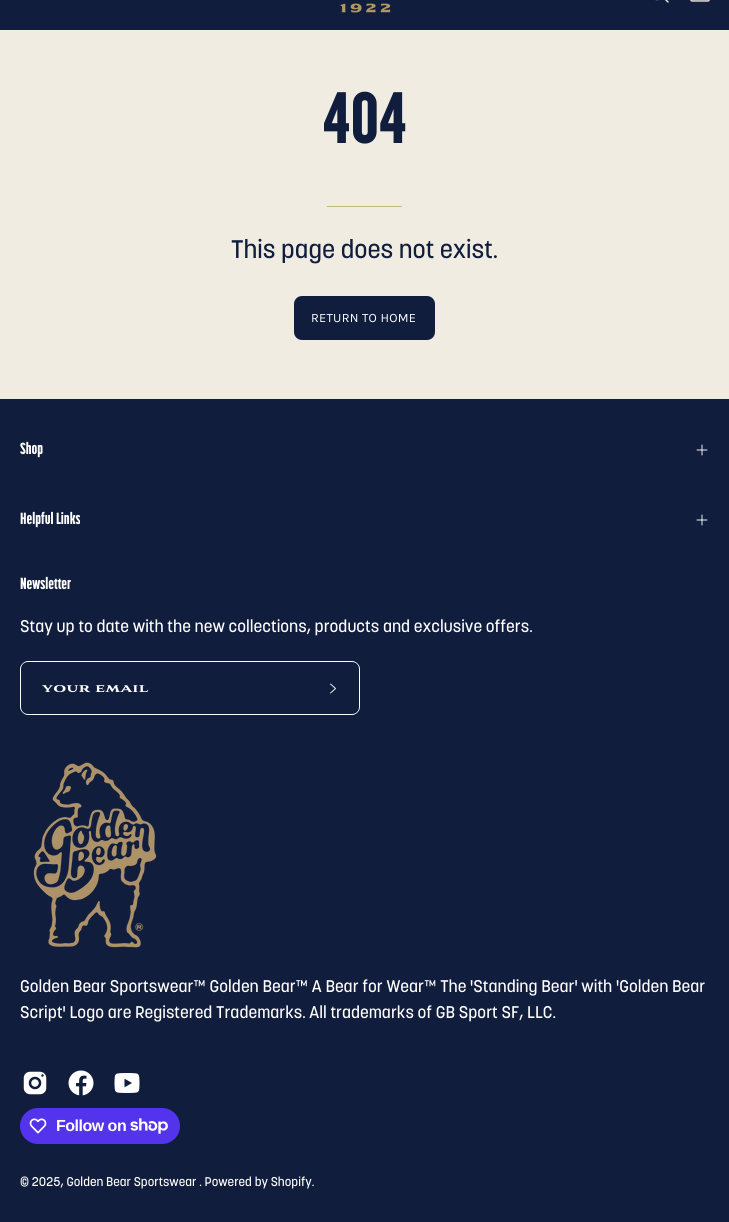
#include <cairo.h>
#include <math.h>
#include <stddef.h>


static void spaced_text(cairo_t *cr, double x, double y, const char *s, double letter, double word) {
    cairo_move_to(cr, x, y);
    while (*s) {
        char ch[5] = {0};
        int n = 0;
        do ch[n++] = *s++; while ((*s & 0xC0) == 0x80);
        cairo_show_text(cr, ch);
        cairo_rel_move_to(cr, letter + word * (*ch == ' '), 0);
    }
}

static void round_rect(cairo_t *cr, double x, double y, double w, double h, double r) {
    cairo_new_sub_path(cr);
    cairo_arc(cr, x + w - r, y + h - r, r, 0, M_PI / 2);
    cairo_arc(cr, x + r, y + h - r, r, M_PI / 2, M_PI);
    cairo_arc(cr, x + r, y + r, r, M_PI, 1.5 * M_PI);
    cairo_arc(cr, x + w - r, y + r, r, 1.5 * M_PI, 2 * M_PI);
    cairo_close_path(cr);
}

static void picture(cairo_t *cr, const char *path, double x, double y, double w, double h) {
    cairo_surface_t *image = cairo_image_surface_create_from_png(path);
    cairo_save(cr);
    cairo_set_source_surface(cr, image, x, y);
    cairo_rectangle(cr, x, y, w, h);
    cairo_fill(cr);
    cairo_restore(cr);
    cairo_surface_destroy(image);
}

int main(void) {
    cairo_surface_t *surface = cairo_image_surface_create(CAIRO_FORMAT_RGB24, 729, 1222);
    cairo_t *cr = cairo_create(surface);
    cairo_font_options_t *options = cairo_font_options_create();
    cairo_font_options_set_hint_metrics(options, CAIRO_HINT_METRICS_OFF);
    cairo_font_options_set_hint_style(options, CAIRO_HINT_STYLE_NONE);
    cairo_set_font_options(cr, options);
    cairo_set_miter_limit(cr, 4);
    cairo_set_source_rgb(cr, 0.941, 0.925, 0.882);
    cairo_paint(cr);
    cairo_set_source_rgb(cr, 0.067, 0.114, 0.239);
    cairo_rectangle(cr, 0, 0, 729, 30);
    cairo_fill(cr);
    cairo_new_path(cr);
    cairo_move_to(cr, 657, -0.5);
    cairo_curve_to(cr, 668, -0.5, 668, -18, 657, -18);
    cairo_curve_to(cr, 645.5, -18, 645.5, -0.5, 657, -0.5);
    cairo_close_path(cr);
    cairo_move_to(cr, 663, -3);
    cairo_line_to(cr, 668, 2);
    cairo_set_source_rgb(cr, 0.941, 0.925, 0.882);
    cairo_set_line_width(cr, 1.4);
    cairo_set_line_cap(cr, CAIRO_LINE_CAP_ROUND);
    cairo_set_line_join(cr, CAIRO_LINE_JOIN_ROUND);
    cairo_stroke(cr);
    picture(cr, "img1.png", 690, 0, 20, 2);
    picture(cr, "img2.png", 340, 3, 51, 10);
    cairo_select_font_face(cr, "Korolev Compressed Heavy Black", CAIRO_FONT_SLANT_NORMAL, CAIRO_FONT_WEIGHT_NORMAL);
    cairo_set_font_size(cr, 72);
    cairo_set_source_rgb(cr, 0.067, 0.114, 0.239);
    cairo_move_to(cr, 323, 143);
    cairo_show_text(cr, "404");
    cairo_set_source_rgb(cr, 0.788, 0.722, 0.529);
    cairo_rectangle(cr, 327, 206, 75, 1);
    cairo_fill(cr);
    cairo_select_font_face(cr, "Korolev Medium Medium", CAIRO_FONT_SLANT_NORMAL, CAIRO_FONT_WEIGHT_NORMAL);
    cairo_set_font_size(cr, 25.25);
    cairo_set_source_rgb(cr, 0.067, 0.114, 0.239);
    cairo_move_to(cr, 231, 258);
    cairo_show_text(cr, "This page does not exist.");
    round_rect(cr, 294, 296, 141, 44, 8);
    cairo_fill(cr);
    cairo_select_font_face(cr, "Karla", CAIRO_FONT_SLANT_NORMAL, CAIRO_FONT_WEIGHT_NORMAL);
    cairo_set_font_size(cr, 12.75);
    cairo_set_source_rgb(cr, 1, 1, 1);
    spaced_text(cr, 311, 322, "RETURN TO HOME", 0.25, 0);
    cairo_set_source_rgb(cr, 0.067, 0.114, 0.239);
    cairo_rectangle(cr, 0, 399, 729, 823);
    cairo_fill(cr);
    cairo_select_font_face(cr, "Korolev Compressed Heavy Black", CAIRO_FONT_SLANT_NORMAL, CAIRO_FONT_WEIGHT_NORMAL);
    cairo_set_font_size(cr, 16);
    cairo_set_source_rgb(cr, 1, 1, 1);
    cairo_move_to(cr, 20, 454);
    cairo_show_text(cr, "Shop");
    cairo_new_path(cr);
    cairo_move_to(cr, 697, 450);
    cairo_line_to(cr, 707, 450);
    cairo_move_to(cr, 702, 445);
    cairo_line_to(cr, 702, 455);
    cairo_set_line_width(cr, 0.9);
    cairo_stroke(cr);
    cairo_move_to(cr, 20, 524);
    cairo_show_text(cr, "Helpful Links");
    cairo_new_path(cr);
    cairo_move_to(cr, 697, 520);
    cairo_line_to(cr, 707, 520);
    cairo_move_to(cr, 702, 515);
    cairo_line_to(cr, 702, 525);
    cairo_stroke(cr);
    cairo_move_to(cr, 20, 589);
    cairo_show_text(cr, "Newsletter");
    cairo_select_font_face(cr, "Korolev Medium Medium", CAIRO_FONT_SLANT_NORMAL, CAIRO_FONT_WEIGHT_NORMAL);
    cairo_set_font_size(cr, 16.8);
    cairo_move_to(cr, 20, 632);
    cairo_show_text(cr, "Stay up to date with the new collections, products and exclusive offers.");
    cairo_set_fill_rule(cr, CAIRO_FILL_RULE_EVEN_ODD);
    cairo_new_path(cr);
    cairo_move_to(cr, 28, 661);
    cairo_line_to(cr, 306, 661);
    cairo_line_to(cr, 306, 715);
    cairo_line_to(cr, 28, 715);
    cairo_curve_to(cr, 24, 715, 20, 711, 20, 707);
    cairo_line_to(cr, 20, 669);
    cairo_curve_to(cr, 20, 665, 24, 661, 28, 661);
    cairo_close_path(cr);
    cairo_move_to(cr, 28, 662);
    cairo_line_to(cr, 306, 662);
    cairo_line_to(cr, 306, 714);
    cairo_line_to(cr, 28, 714);
    cairo_curve_to(cr, 24, 714, 21, 711, 21, 707);
    cairo_line_to(cr, 21, 669);
    cairo_curve_to(cr, 21, 665, 24, 662, 28, 662);
    cairo_close_path(cr);
    cairo_fill(cr);
    cairo_select_font_face(cr, "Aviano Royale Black", CAIRO_FONT_SLANT_NORMAL, CAIRO_FONT_WEIGHT_NORMAL);
    cairo_move_to(cr, 41, 693);
    cairo_show_text(cr, "your email");
    cairo_new_path(cr);
    cairo_move_to(cr, 306, 661);
    cairo_line_to(cr, 352, 661);
    cairo_curve_to(cr, 356, 661, 360, 665, 360, 669);
    cairo_line_to(cr, 360, 707);
    cairo_curve_to(cr, 360, 711, 356, 715, 352, 715);
    cairo_line_to(cr, 306, 715);
    cairo_close_path(cr);
    cairo_move_to(cr, 306, 662);
    cairo_line_to(cr, 352, 662);
    cairo_curve_to(cr, 356, 662, 359, 665, 359, 669);
    cairo_line_to(cr, 359, 707);
    cairo_curve_to(cr, 359, 711, 356, 714, 352, 714);
    cairo_line_to(cr, 306, 714);
    cairo_close_path(cr);
    cairo_fill(cr);
    cairo_new_path(cr);
    cairo_move_to(cr, 330.5, 684);
    cairo_line_to(cr, 335.5, 688.5);
    cairo_line_to(cr, 330.5, 693);
    cairo_stroke(cr);
    picture(cr, "img3.png", 33, 762, 124, 186);
    cairo_select_font_face(cr, "Korolev Medium Medium", CAIRO_FONT_SLANT_NORMAL, CAIRO_FONT_WEIGHT_NORMAL);
    cairo_move_to(cr, 20, 992);
    cairo_show_text(cr, "Golden Bear Sportswear™ Golden Bear™ A Bear for Wear™ The 'Standing Bear' with 'Golden Bear");
    cairo_move_to(cr, 20, 1018);
    cairo_show_text(cr, "Script' Logo are Registered Trademarks. All trademarks of GB Sport SF, LLC.");
    picture(cr, "img4.png", 23, 1071, 24, 24);
    picture(cr, "img5.png", 68, 1070, 26, 26);
    picture(cr, "img6.png", 114, 1073, 26, 20);
    cairo_set_source_rgb(cr, 0.329, 0.2, 0.922);
    round_rect(cr, 20, 1108, 160, 36, 18);
    cairo_fill(cr);
    picture(cr, "img7.png", 29, 1118, 18, 16);
    cairo_select_font_face(cr, "Liberation Sans", CAIRO_FONT_SLANT_NORMAL, CAIRO_FONT_WEIGHT_BOLD);
    cairo_set_font_size(cr, 16);
    cairo_set_source_rgb(cr, 1, 1, 1);
    spaced_text(cr, 56, 1131, "Follow on", -0.5, 0);
    picture(cr, "img8.png", 130, 1118, 38, 16);
    cairo_select_font_face(cr, "Korolev Medium Medium", CAIRO_FONT_SLANT_NORMAL, CAIRO_FONT_WEIGHT_NORMAL);
    cairo_set_font_size(cr, 12.6);
    cairo_move_to(cr, 20, 1186);
    cairo_show_text(cr, "© 2025, Golden Bear Sportswear . Powered by Shopify.");
    cairo_surface_write_to_png(surface, "page.png");
    cairo_font_options_destroy(options);
    cairo_destroy(cr);
    cairo_surface_destroy(surface);
    return 0;
}
